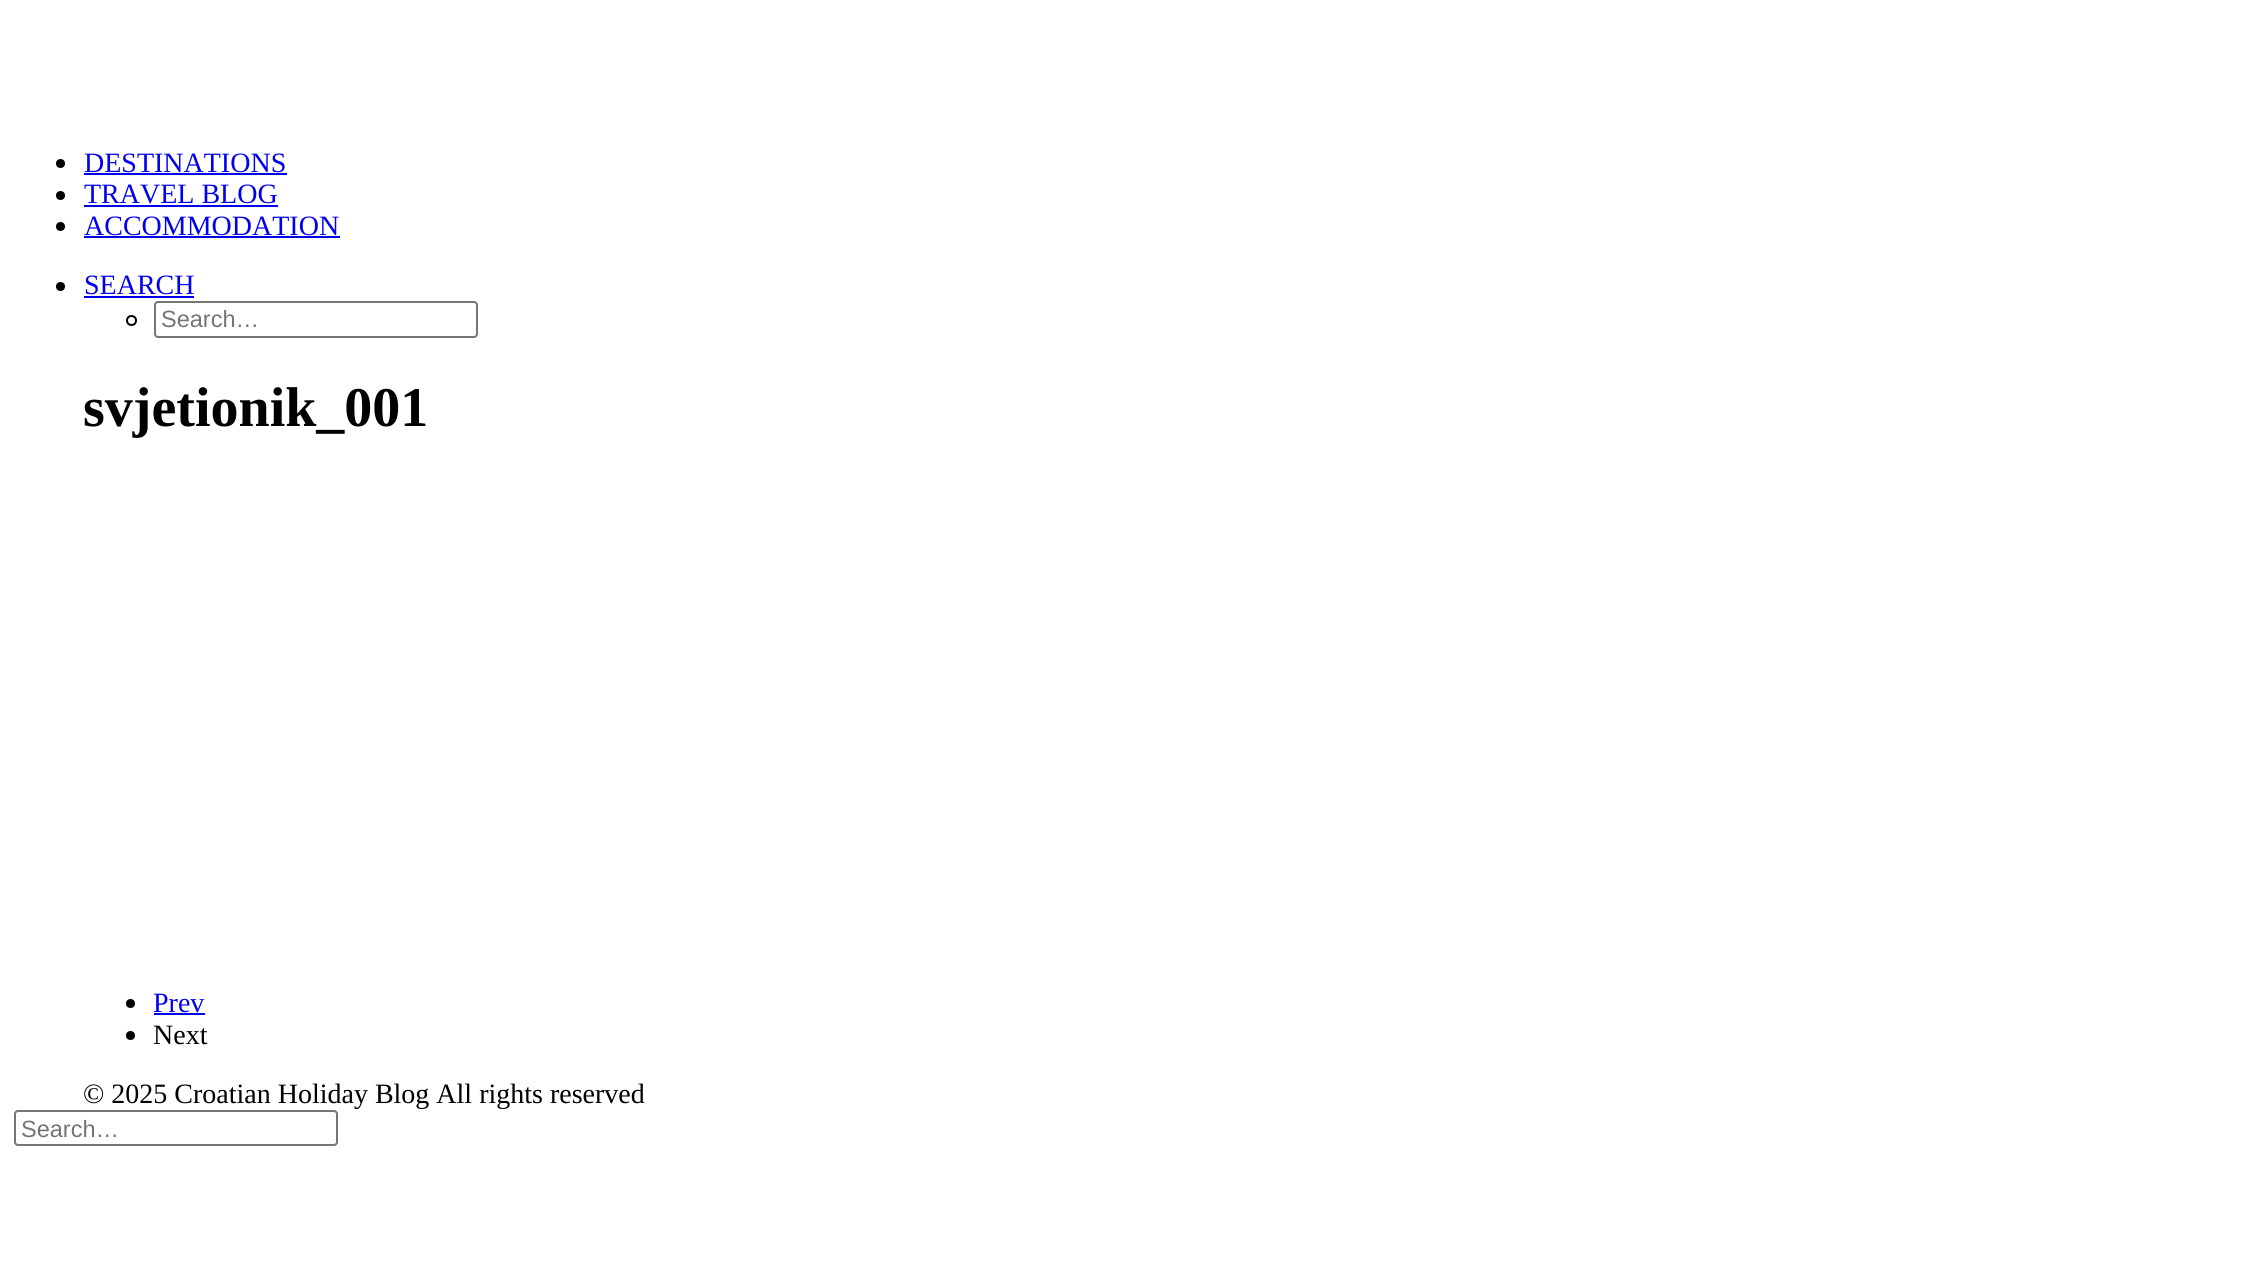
#include <cairo.h>
#include <math.h>
#include <stddef.h>


static void round_rect(cairo_t *cr, double x, double y, double w, double h, double r) {
    cairo_new_sub_path(cr);
    cairo_arc(cr, x + w - r, y + h - r, r, 0, M_PI / 2);
    cairo_arc(cr, x + r, y + h - r, r, M_PI / 2, M_PI);
    cairo_arc(cr, x + r, y + r, r, M_PI, 1.5 * M_PI);
    cairo_arc(cr, x + w - r, y + r, r, 1.5 * M_PI, 2 * M_PI);
    cairo_close_path(cr);
}

int main(void) {
    cairo_surface_t *surface = cairo_image_surface_create(CAIRO_FORMAT_RGB24, 2266, 1266);
    cairo_t *cr = cairo_create(surface);
    cairo_font_options_t *options = cairo_font_options_create();
    cairo_font_options_set_hint_metrics(options, CAIRO_HINT_METRICS_OFF);
    cairo_font_options_set_hint_style(options, CAIRO_HINT_STYLE_NONE);
    cairo_set_font_options(cr, options);
    cairo_set_miter_limit(cr, 4);
    cairo_set_source_rgb(cr, 1, 1, 1);
    cairo_paint(cr);
    cairo_set_source_rgb(cr, 0, 0, 0);
    cairo_arc(cr, 60.5, 163.5, 4.5, 0, 2 * M_PI);
    cairo_fill(cr);
    cairo_select_font_face(cr, "Liberation Serif", CAIRO_FONT_SLANT_NORMAL, CAIRO_FONT_WEIGHT_NORMAL);
    cairo_set_font_size(cr, 28);
    cairo_set_source_rgb(cr, 0, 0, 0.933);
    cairo_move_to(cr, 84, 172);
    cairo_show_text(cr, "DESTINATIONS");
    cairo_rectangle(cr, 84, 173, 203, 2);
    cairo_fill(cr);
    cairo_set_source_rgb(cr, 0, 0, 0);
    cairo_arc(cr, 60.5, 195.5, 4.5, 0, 2 * M_PI);
    cairo_fill(cr);
    cairo_set_source_rgb(cr, 0, 0, 0.933);
    cairo_move_to(cr, 84, 203);
    cairo_show_text(cr, "TRAVEL BLOG");
    cairo_rectangle(cr, 84, 205, 194, 2);
    cairo_fill(cr);
    cairo_set_source_rgb(cr, 0, 0, 0);
    cairo_arc(cr, 60.5, 226.5, 4.5, 0, 2 * M_PI);
    cairo_fill(cr);
    cairo_set_source_rgb(cr, 0, 0, 0.933);
    cairo_move_to(cr, 84, 235);
    cairo_show_text(cr, "ACCOMMODATION");
    cairo_rectangle(cr, 84, 236, 256, 2);
    cairo_fill(cr);
    cairo_set_source_rgb(cr, 0, 0, 0);
    cairo_arc(cr, 60.5, 286.5, 4.5, 0, 2 * M_PI);
    cairo_fill(cr);
    cairo_set_source_rgb(cr, 0, 0, 0.933);
    cairo_move_to(cr, 84, 294);
    cairo_show_text(cr, "SEARCH");
    cairo_rectangle(cr, 84, 296, 110, 2);
    cairo_fill(cr);
    cairo_arc(cr, 131.5, 320.5, 4.5, 0, 2 * M_PI);
    cairo_set_source_rgb(cr, 0, 0, 0);
    cairo_stroke(cr);
    round_rect(cr, 155, 302, 322, 35, 3);
    cairo_set_source_rgb(cr, 0.463, 0.463, 0.463);
    cairo_stroke(cr);
    cairo_select_font_face(cr, "Liberation Sans", CAIRO_FONT_SLANT_NORMAL, CAIRO_FONT_WEIGHT_NORMAL);
    cairo_set_font_size(cr, 23.5);
    cairo_set_source_rgb(cr, 0.459, 0.459, 0.459);
    cairo_move_to(cr, 161, 327);
    cairo_show_text(cr, "Search…");
    cairo_select_font_face(cr, "Liberation Serif", CAIRO_FONT_SLANT_NORMAL, CAIRO_FONT_WEIGHT_BOLD);
    cairo_set_font_size(cr, 56);
    cairo_set_source_rgb(cr, 0, 0, 0);
    cairo_move_to(cr, 83, 426);
    cairo_show_text(cr, "svjetionik_001");
    cairo_new_path(cr);
    cairo_arc(cr, 130.5, 1003.5, 4.5, 0, 2 * M_PI);
    cairo_fill(cr);
    cairo_select_font_face(cr, "Liberation Serif", CAIRO_FONT_SLANT_NORMAL, CAIRO_FONT_WEIGHT_NORMAL);
    cairo_set_font_size(cr, 28);
    cairo_set_source_rgb(cr, 0, 0, 0.933);
    cairo_move_to(cr, 153, 1012);
    cairo_show_text(cr, "Prev");
    cairo_rectangle(cr, 154, 1013, 51, 2);
    cairo_fill(cr);
    cairo_set_source_rgb(cr, 0, 0, 0);
    cairo_arc(cr, 130.5, 1035.5, 4.5, 0, 2 * M_PI);
    cairo_fill(cr);
    cairo_move_to(cr, 153, 1044);
    cairo_show_text(cr, "Next");
    cairo_move_to(cr, 83, 1103);
    cairo_show_text(cr, "© 2025 Croatian Holiday Blog All rights reserved");
    round_rect(cr, 15, 1111, 322, 34, 3);
    cairo_set_source_rgb(cr, 0.463, 0.463, 0.463);
    cairo_stroke(cr);
    cairo_select_font_face(cr, "Liberation Sans", CAIRO_FONT_SLANT_NORMAL, CAIRO_FONT_WEIGHT_NORMAL);
    cairo_set_font_size(cr, 23.5);
    cairo_set_source_rgb(cr, 0.459, 0.459, 0.459);
    cairo_move_to(cr, 21, 1137);
    cairo_show_text(cr, "Search…");
    cairo_surface_write_to_png(surface, "page.png");
    cairo_font_options_destroy(options);
    cairo_destroy(cr);
    cairo_surface_destroy(surface);
    return 0;
}
